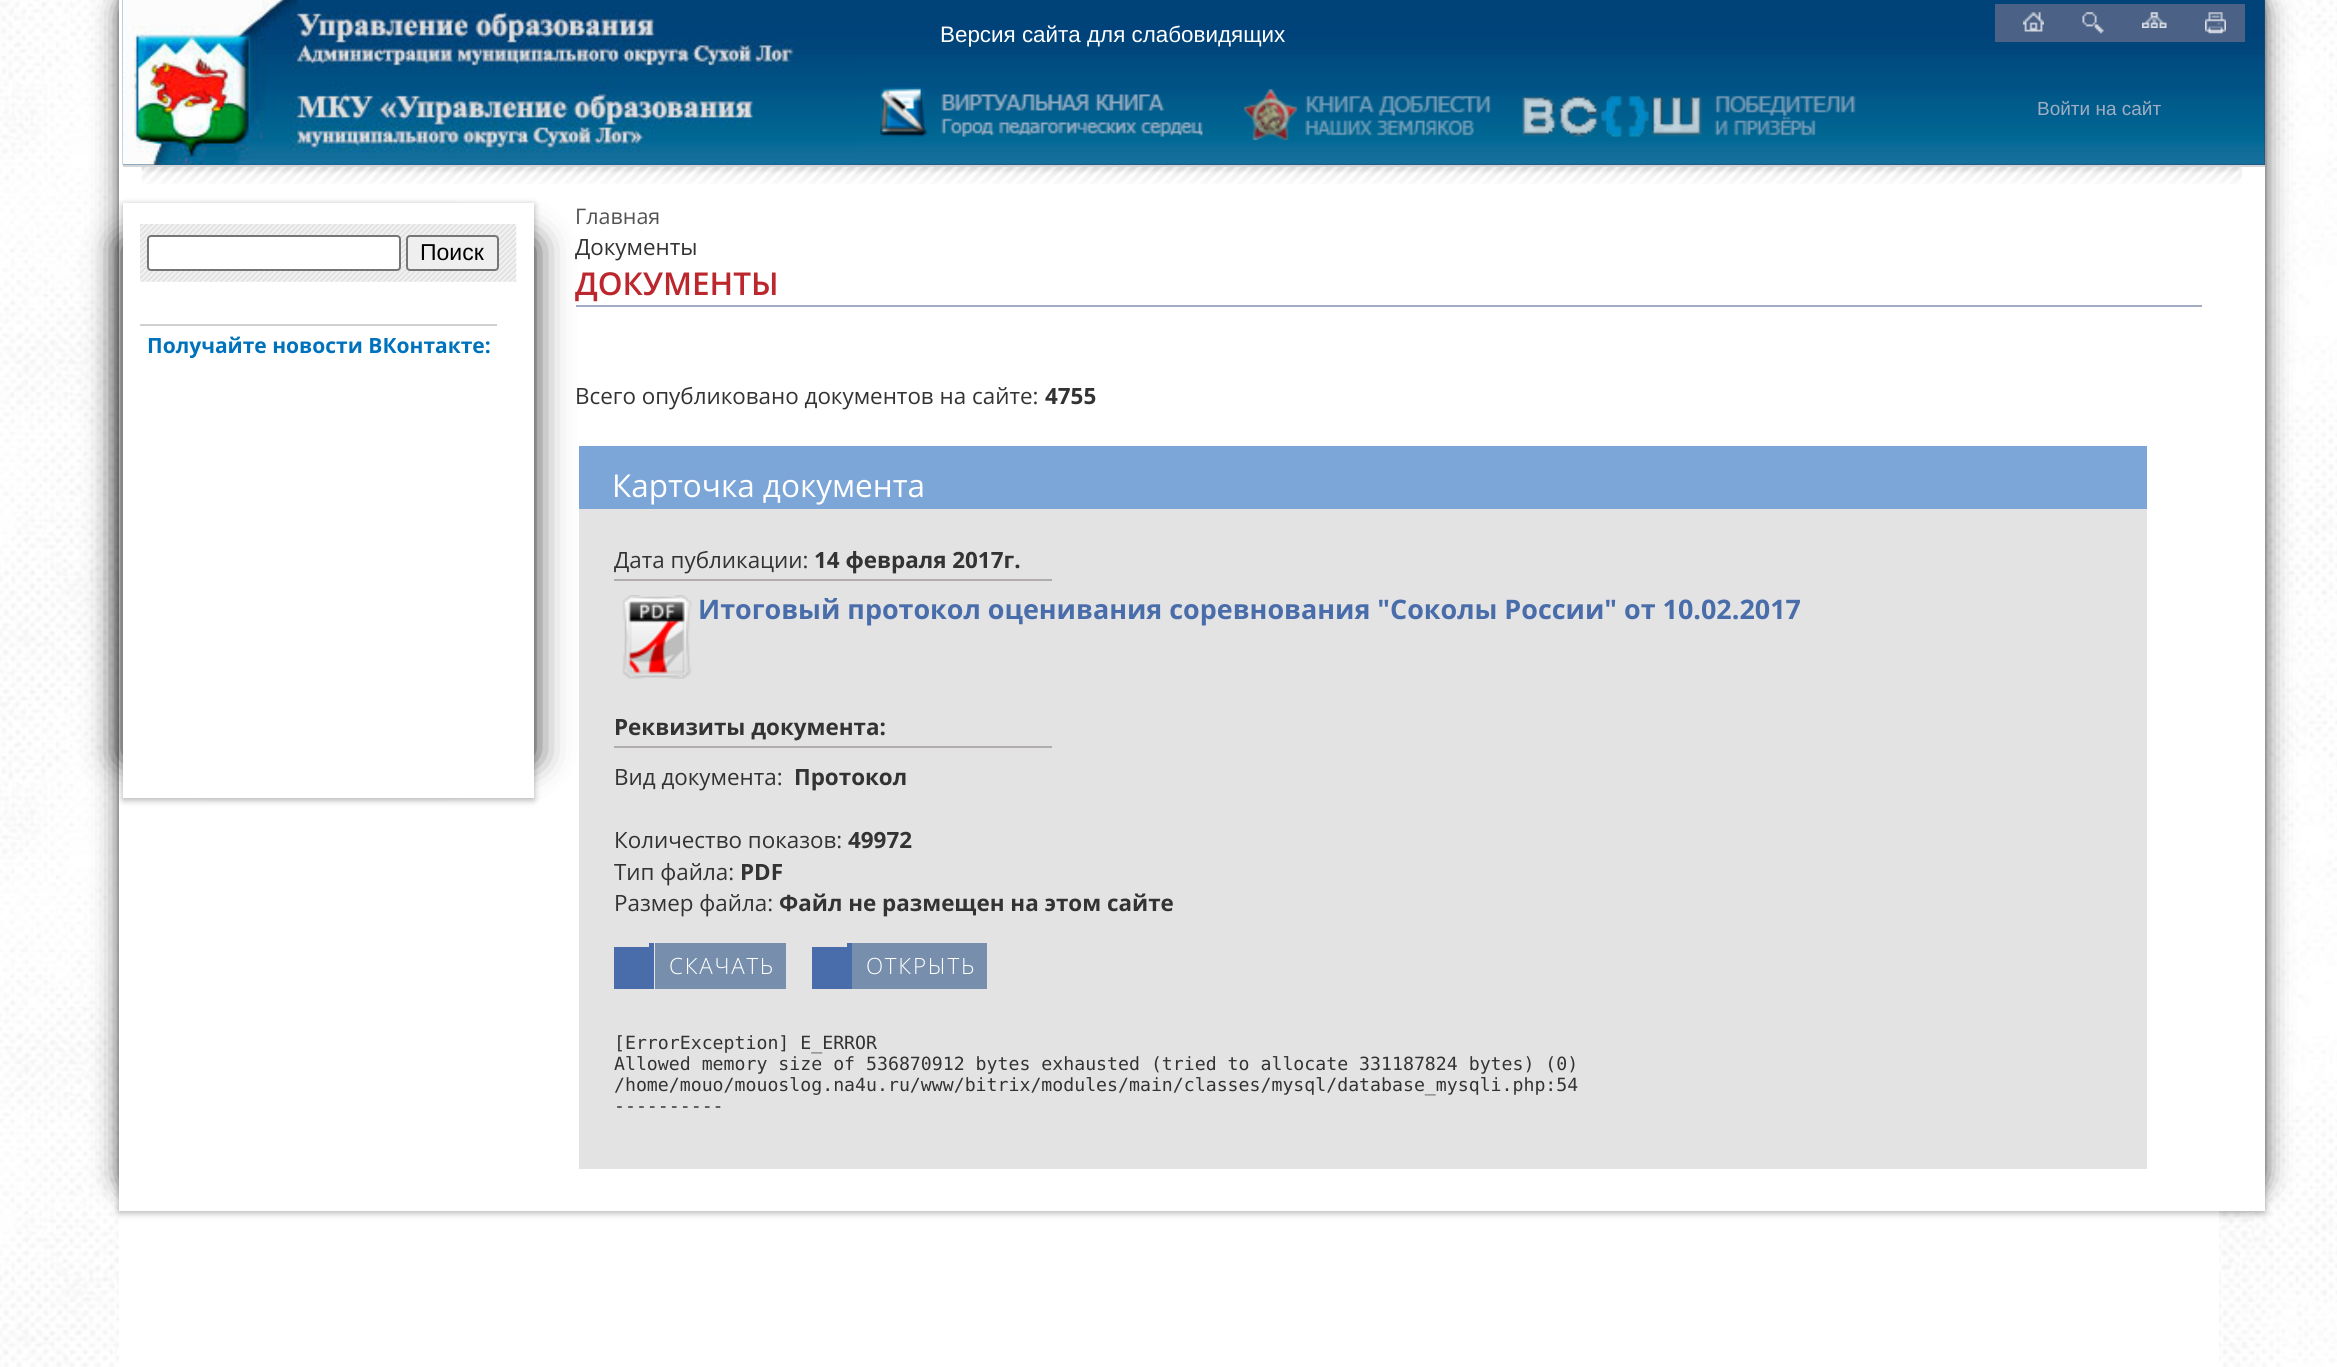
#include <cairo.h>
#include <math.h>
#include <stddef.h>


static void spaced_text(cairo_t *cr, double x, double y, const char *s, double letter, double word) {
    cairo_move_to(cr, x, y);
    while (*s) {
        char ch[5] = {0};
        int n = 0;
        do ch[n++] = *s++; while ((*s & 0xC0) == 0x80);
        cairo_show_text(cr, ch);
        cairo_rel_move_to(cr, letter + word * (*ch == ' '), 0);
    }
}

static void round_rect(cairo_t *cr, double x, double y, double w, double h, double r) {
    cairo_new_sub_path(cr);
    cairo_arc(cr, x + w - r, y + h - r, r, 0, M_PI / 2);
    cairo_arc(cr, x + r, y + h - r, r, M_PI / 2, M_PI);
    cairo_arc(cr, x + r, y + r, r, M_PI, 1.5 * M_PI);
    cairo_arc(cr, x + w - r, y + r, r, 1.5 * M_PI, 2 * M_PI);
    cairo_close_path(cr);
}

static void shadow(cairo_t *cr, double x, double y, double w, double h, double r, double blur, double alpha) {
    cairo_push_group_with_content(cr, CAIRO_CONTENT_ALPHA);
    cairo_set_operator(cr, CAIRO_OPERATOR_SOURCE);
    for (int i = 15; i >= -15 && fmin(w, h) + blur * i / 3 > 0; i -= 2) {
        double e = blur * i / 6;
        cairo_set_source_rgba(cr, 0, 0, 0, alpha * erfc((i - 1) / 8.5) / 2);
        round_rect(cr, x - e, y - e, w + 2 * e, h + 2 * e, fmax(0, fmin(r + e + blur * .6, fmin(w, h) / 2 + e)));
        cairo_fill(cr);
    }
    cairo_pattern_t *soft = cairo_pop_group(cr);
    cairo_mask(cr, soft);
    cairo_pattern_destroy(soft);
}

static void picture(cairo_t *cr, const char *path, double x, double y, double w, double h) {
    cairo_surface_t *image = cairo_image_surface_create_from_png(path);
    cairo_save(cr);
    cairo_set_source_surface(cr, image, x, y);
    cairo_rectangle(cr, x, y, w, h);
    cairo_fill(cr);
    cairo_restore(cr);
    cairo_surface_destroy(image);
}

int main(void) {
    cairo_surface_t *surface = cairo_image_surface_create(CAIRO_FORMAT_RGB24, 2337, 1367);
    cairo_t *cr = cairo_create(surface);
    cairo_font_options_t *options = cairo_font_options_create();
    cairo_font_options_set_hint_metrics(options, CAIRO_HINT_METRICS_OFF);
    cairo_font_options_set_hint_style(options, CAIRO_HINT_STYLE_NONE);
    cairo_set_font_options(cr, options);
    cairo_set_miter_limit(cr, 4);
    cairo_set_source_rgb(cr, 1, 1, 1);
    cairo_paint(cr);
    picture(cr, "img1.png", 0, 0, 2337, 1367);
    cairo_set_source_rgb(cr, 0, 0, 0);
    shadow(cr, 119, -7, 2146, 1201, 18, 13, 0.6);
    cairo_set_source_rgb(cr, 1, 1, 1);
    cairo_rectangle(cr, 119, 1211, 2100, 156);
    cairo_fill(cr);
    cairo_set_source_rgb(cr, 0, 0, 0);
    shadow(cr, 119, -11, 2146, 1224, 0, 3.5, 0.3);
    cairo_set_source_rgb(cr, 1, 1, 1);
    cairo_rectangle(cr, 119, 0, 2146, 1211);
    cairo_fill(cr);
    cairo_set_source_rgb(cr, 0.184, 0.278, 0.451);
    cairo_rectangle(cr, 123, 0, 2142, 165);
    cairo_fill(cr);
    picture(cr, "img2.png", 122, 0, 2143, 165);
    cairo_set_source_rgb(cr, 0.839, 0.839, 0.839);
    cairo_rectangle(cr, 123, 165, 2142, 2);
    cairo_fill(cr);
    picture(cr, "img3.png", 122, 0, 736, 165);
    cairo_select_font_face(cr, "Liberation Sans", CAIRO_FONT_SLANT_NORMAL, CAIRO_FONT_WEIGHT_NORMAL);
    cairo_set_font_size(cr, 22.4);
    cairo_set_source_rgb(cr, 1, 1, 1);
    cairo_move_to(cr, 940, 42);
    cairo_show_text(cr, "Версия сайта для слабовидящих");
    cairo_set_source_rgb(cr, 0.294, 0.38, 0.522);
    cairo_rectangle(cr, 1995, 4, 250, 38);
    cairo_fill(cr);
    picture(cr, "img4.png", 2023, 12, 21, 20);
    picture(cr, "img5.png", 2082, 12, 22, 22);
    picture(cr, "img6.png", 2142, 12, 25, 16);
    picture(cr, "img7.png", 2205, 12, 21, 22);
    picture(cr, "img8.png", 879, 87, 324, 50);
    picture(cr, "img9.png", 1244, 89, 247, 51);
    picture(cr, "img10.png", 1522, 95, 334, 42);
    cairo_set_font_size(cr, 19);
    cairo_set_source_rgb(cr, 0.627, 0.678, 0.761);
    cairo_move_to(cr, 2037, 115);
    cairo_show_text(cr, "Войти на сайт");
    picture(cr, "img11.png", 141, 167, 2101, 17);
    cairo_set_source_rgb(cr, 0, 0, 0);
    shadow(cr, 203, 243, 331, 515, 0, 17.5, 0.8);
    shadow(cr, 123, 243, 330, 515, 0, 17.5, 0.8);
    shadow(cr, 123, 205, 411, 595, 0, 3.5, 0.3);
    cairo_set_source_rgb(cr, 1, 1, 1);
    cairo_rectangle(cr, 123, 203, 411, 595);
    cairo_fill(cr);
    picture(cr, "img12.png", 140, 224, 377, 58);
    round_rect(cr, 148, 236, 252, 34, 3);
    cairo_fill_preserve(cr);
    cairo_set_source_rgb(cr, 0.463, 0.463, 0.463);
    cairo_stroke(cr);
    cairo_set_source_rgb(cr, 0.937, 0.937, 0.937);
    round_rect(cr, 407, 236, 91, 34, 3);
    cairo_fill_preserve(cr);
    cairo_set_source_rgb(cr, 0.463, 0.463, 0.463);
    cairo_stroke(cr);
    cairo_set_font_size(cr, 23);
    cairo_set_source_rgb(cr, 0, 0, 0);
    cairo_move_to(cr, 420, 260);
    cairo_show_text(cr, "Поиск");
    cairo_set_source_rgb(cr, 0.82, 0.816, 0.816);
    cairo_rectangle(cr, 140, 324, 357, 2);
    cairo_fill(cr);
    cairo_select_font_face(cr, "Open Sans", CAIRO_FONT_SLANT_NORMAL, CAIRO_FONT_WEIGHT_BOLD);
    cairo_set_font_size(cr, 21);
    cairo_set_source_rgb(cr, 0, 0.447, 0.737);
    cairo_move_to(cr, 147, 353);
    cairo_show_text(cr, "Получайте новости ВКонтакте:");
    cairo_select_font_face(cr, "Open Sans", CAIRO_FONT_SLANT_NORMAL, CAIRO_FONT_WEIGHT_NORMAL);
    cairo_set_font_size(cr, 21.5);
    cairo_set_source_rgb(cr, 0.325, 0.325, 0.325);
    cairo_move_to(cr, 575, 224);
    cairo_show_text(cr, "Главная");
    cairo_set_font_size(cr, 22.4);
    cairo_set_source_rgb(cr, 0.2, 0.2, 0.2);
    cairo_move_to(cr, 575, 255);
    cairo_show_text(cr, "Документы");
    cairo_select_font_face(cr, "Open Sans SemiBold", CAIRO_FONT_SLANT_NORMAL, CAIRO_FONT_WEIGHT_NORMAL);
    cairo_set_font_size(cr, 31.5);
    cairo_set_source_rgb(cr, 0.737, 0.153, 0.176);
    cairo_move_to(cr, 575, 295);
    cairo_show_text(cr, "ДОКУМЕНТЫ");
    cairo_set_source_rgb(cr, 0.627, 0.678, 0.761);
    cairo_rectangle(cr, 576, 305, 1626, 2);
    cairo_fill(cr);
    cairo_select_font_face(cr, "Open Sans", CAIRO_FONT_SLANT_NORMAL, CAIRO_FONT_WEIGHT_NORMAL);
    cairo_set_font_size(cr, 22.4);
    cairo_set_source_rgb(cr, 0.2, 0.2, 0.2);
    cairo_move_to(cr, 575, 404);
    cairo_show_text(cr, "Всего опубликовано документов на сайте:");
    cairo_select_font_face(cr, "Open Sans", CAIRO_FONT_SLANT_NORMAL, CAIRO_FONT_WEIGHT_BOLD);
    cairo_move_to(cr, 1045, 404);
    cairo_show_text(cr, "4755");
    cairo_set_source_rgb(cr, 0.486, 0.651, 0.847);
    cairo_rectangle(cr, 579, 446, 1568, 63);
    cairo_fill(cr);
    cairo_select_font_face(cr, "Open Sans", CAIRO_FONT_SLANT_NORMAL, CAIRO_FONT_WEIGHT_NORMAL);
    cairo_set_font_size(cr, 31.5);
    cairo_set_source_rgb(cr, 1, 1, 1);
    cairo_move_to(cr, 612, 497);
    cairo_show_text(cr, "Карточка документа");
    cairo_set_source_rgb(cr, 0.89, 0.89, 0.89);
    cairo_rectangle(cr, 579, 509, 1568, 660);
    cairo_fill(cr);
    cairo_set_font_size(cr, 22.4);
    cairo_set_source_rgb(cr, 0.2, 0.2, 0.2);
    cairo_move_to(cr, 614, 568);
    cairo_show_text(cr, "Дата публикации:");
    cairo_select_font_face(cr, "Open Sans", CAIRO_FONT_SLANT_NORMAL, CAIRO_FONT_WEIGHT_BOLD);
    cairo_move_to(cr, 814, 568);
    cairo_show_text(cr, "14 февраля 2017г.");
    cairo_set_source_rgb(cr, 0.694, 0.678, 0.678);
    cairo_rectangle(cr, 614, 579, 438, 2);
    cairo_fill(cr);
    picture(cr, "img13.png", 622, 595, 70, 84);
    cairo_set_font_size(cr, 26.9);
    cairo_set_source_rgb(cr, 0.282, 0.427, 0.667);
    cairo_move_to(cr, 698, 619);
    cairo_show_text(cr, "Итоговый протокол оценивания соревнования \"Соколы России\" от 10.02.2017");
    cairo_set_font_size(cr, 22.4);
    cairo_set_source_rgb(cr, 0.2, 0.2, 0.2);
    cairo_move_to(cr, 614, 735);
    cairo_show_text(cr, "Реквизиты документа:");
    cairo_set_source_rgb(cr, 0.694, 0.678, 0.678);
    cairo_rectangle(cr, 614, 746, 438, 2);
    cairo_fill(cr);
    cairo_select_font_face(cr, "Open Sans", CAIRO_FONT_SLANT_NORMAL, CAIRO_FONT_WEIGHT_NORMAL);
    cairo_set_source_rgb(cr, 0.2, 0.2, 0.2);
    cairo_move_to(cr, 614, 785);
    cairo_show_text(cr, "Вид документа:");
    cairo_select_font_face(cr, "Open Sans", CAIRO_FONT_SLANT_NORMAL, CAIRO_FONT_WEIGHT_BOLD);
    cairo_move_to(cr, 794, 785);
    cairo_show_text(cr, "Протокол");
    cairo_select_font_face(cr, "Open Sans", CAIRO_FONT_SLANT_NORMAL, CAIRO_FONT_WEIGHT_NORMAL);
    cairo_move_to(cr, 614, 848);
    cairo_show_text(cr, "Количество показов:");
    cairo_select_font_face(cr, "Open Sans", CAIRO_FONT_SLANT_NORMAL, CAIRO_FONT_WEIGHT_BOLD);
    cairo_move_to(cr, 848, 848);
    cairo_show_text(cr, "49972");
    cairo_select_font_face(cr, "Open Sans", CAIRO_FONT_SLANT_NORMAL, CAIRO_FONT_WEIGHT_NORMAL);
    cairo_move_to(cr, 614, 880);
    cairo_show_text(cr, "Тип файла:");
    cairo_select_font_face(cr, "Open Sans", CAIRO_FONT_SLANT_NORMAL, CAIRO_FONT_WEIGHT_BOLD);
    cairo_move_to(cr, 740, 880);
    cairo_show_text(cr, "PDF");
    cairo_select_font_face(cr, "Open Sans", CAIRO_FONT_SLANT_NORMAL, CAIRO_FONT_WEIGHT_NORMAL);
    cairo_move_to(cr, 614, 911);
    cairo_show_text(cr, "Размер файла:");
    cairo_select_font_face(cr, "Open Sans", CAIRO_FONT_SLANT_NORMAL, CAIRO_FONT_WEIGHT_BOLD);
    cairo_move_to(cr, 779, 911);
    cairo_show_text(cr, "Файл не размещен на этом сайте");
    cairo_set_source_rgb(cr, 0.467, 0.561, 0.675);
    cairo_rectangle(cr, 655, 943, 131, 46);
    cairo_fill(cr);
    cairo_select_font_face(cr, "Open Sans Light", CAIRO_FONT_SLANT_NORMAL, CAIRO_FONT_WEIGHT_NORMAL);
    cairo_set_source_rgb(cr, 1, 1, 1);
    spaced_text(cr, 669, 974, "СКАЧАТЬ", 1.75, 0);
    cairo_set_source_rgb(cr, 0.282, 0.427, 0.667);
    cairo_rectangle(cr, 614, 947, 35, 42);
    cairo_fill(cr);
    cairo_rectangle(cr, 649, 943, 5, 46);
    cairo_fill(cr);
    cairo_set_source_rgb(cr, 0.467, 0.561, 0.675);
    cairo_rectangle(cr, 852, 943, 135, 46);
    cairo_fill(cr);
    cairo_set_source_rgb(cr, 1, 1, 1);
    spaced_text(cr, 866, 974, "ОТКРЫТЬ", 1.75, 0);
    cairo_set_source_rgb(cr, 0.282, 0.427, 0.667);
    cairo_rectangle(cr, 812, 947, 35, 42);
    cairo_fill(cr);
    cairo_rectangle(cr, 847, 943, 5, 46);
    cairo_fill(cr);
    cairo_select_font_face(cr, "DejaVu Sans Mono", CAIRO_FONT_SLANT_NORMAL, CAIRO_FONT_WEIGHT_NORMAL);
    cairo_set_font_size(cr, 18.2);
    cairo_set_source_rgb(cr, 0.2, 0.2, 0.2);
    cairo_move_to(cr, 614, 1049);
    cairo_show_text(cr, "[ErrorException] E_ERROR");
    cairo_move_to(cr, 614, 1070);
    cairo_show_text(cr, "Allowed memory size of 536870912 bytes exhausted (tried to allocate 331187824 bytes) (0)");
    cairo_move_to(cr, 614, 1091);
    cairo_show_text(cr, "/home/mouo/mouoslog.na4u.ru/www/bitrix/modules/main/classes/mysql/database_mysqli.php:54");
    cairo_move_to(cr, 614, 1112);
    cairo_show_text(cr, "----------");
    cairo_surface_write_to_png(surface, "page.png");
    cairo_font_options_destroy(options);
    cairo_destroy(cr);
    cairo_surface_destroy(surface);
    return 0;
}
